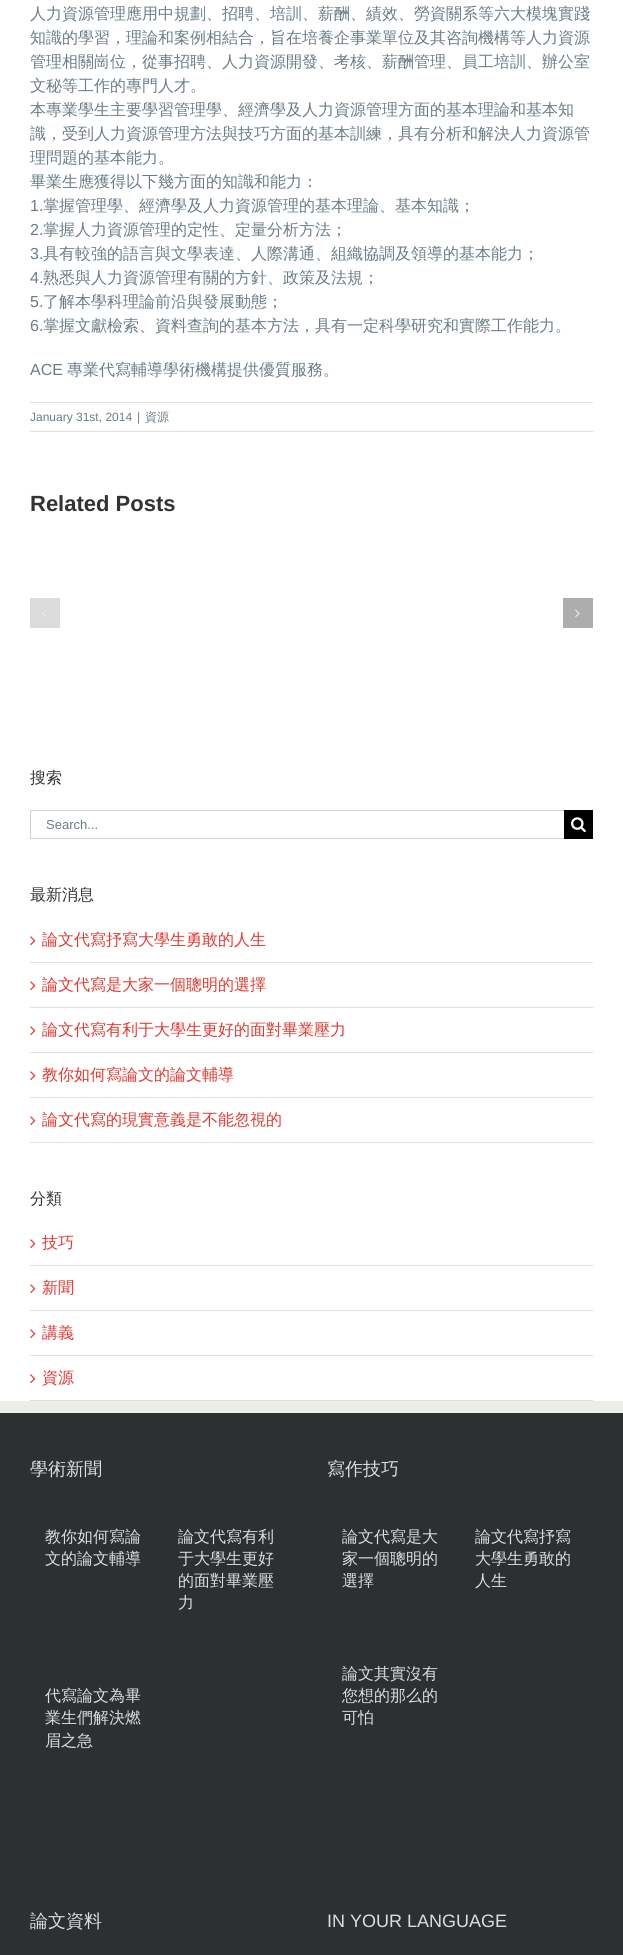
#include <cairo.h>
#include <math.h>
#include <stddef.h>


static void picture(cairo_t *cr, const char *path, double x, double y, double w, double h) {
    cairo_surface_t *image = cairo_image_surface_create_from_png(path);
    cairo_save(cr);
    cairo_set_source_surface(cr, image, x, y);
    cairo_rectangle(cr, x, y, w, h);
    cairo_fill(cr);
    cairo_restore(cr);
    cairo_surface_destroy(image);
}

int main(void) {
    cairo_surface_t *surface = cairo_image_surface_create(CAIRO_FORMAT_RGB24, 623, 1955);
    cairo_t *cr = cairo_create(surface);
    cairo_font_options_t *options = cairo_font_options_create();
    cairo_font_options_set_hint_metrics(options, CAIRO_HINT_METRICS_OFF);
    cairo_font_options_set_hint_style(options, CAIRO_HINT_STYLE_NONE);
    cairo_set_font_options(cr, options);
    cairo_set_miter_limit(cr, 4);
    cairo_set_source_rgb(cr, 1, 1, 1);
    cairo_paint(cr);
    cairo_select_font_face(cr, "WenQuanYi Zen Hei Medium", CAIRO_FONT_SLANT_NORMAL, CAIRO_FONT_WEIGHT_NORMAL);
    cairo_set_font_size(cr, 16);
    cairo_set_source_rgb(cr, 0.416, 0.49, 0.529);
    cairo_move_to(cr, 30, 19);
    cairo_show_text(cr, "人力資源管理應用中規劃、招聘、培訓、薪酬、績效、勞資關系等六大模塊實踐");
    cairo_move_to(cr, 30, 43);
    cairo_show_text(cr, "知識的學習，理論和案例相結合，旨在培養企事業單位及其咨詢機構等人力資源");
    cairo_move_to(cr, 30, 67);
    cairo_show_text(cr, "管理相關崗位，從事招聘、人力資源開發、考核、薪酬管理、員工培訓、辦公室");
    cairo_move_to(cr, 30, 91);
    cairo_show_text(cr, "文秘等工作的專門人才。");
    cairo_move_to(cr, 30, 115);
    cairo_show_text(cr, "本專業學生主要學習管理學、經濟學及人力資源管理方面的基本理論和基本知");
    cairo_move_to(cr, 30, 139);
    cairo_show_text(cr, "識，受到人力資源管理方法與技巧方面的基本訓練，具有分析和解決人力資源管");
    cairo_move_to(cr, 30, 163);
    cairo_show_text(cr, "理問題的基本能力。");
    cairo_move_to(cr, 30, 187);
    cairo_show_text(cr, "畢業生應獲得以下幾方面的知識和能力：");
    cairo_select_font_face(cr, "Liberation Sans", CAIRO_FONT_SLANT_NORMAL, CAIRO_FONT_WEIGHT_NORMAL);
    cairo_move_to(cr, 30, 211);
    cairo_show_text(cr, "1.");
    cairo_select_font_face(cr, "WenQuanYi Zen Hei Medium", CAIRO_FONT_SLANT_NORMAL, CAIRO_FONT_WEIGHT_NORMAL);
    cairo_move_to(cr, 43, 211);
    cairo_show_text(cr, "掌握管理學、經濟學及人力資源管理的基本理論、基本知識；");
    cairo_select_font_face(cr, "Liberation Sans", CAIRO_FONT_SLANT_NORMAL, CAIRO_FONT_WEIGHT_NORMAL);
    cairo_move_to(cr, 30, 235);
    cairo_show_text(cr, "2.");
    cairo_select_font_face(cr, "WenQuanYi Zen Hei Medium", CAIRO_FONT_SLANT_NORMAL, CAIRO_FONT_WEIGHT_NORMAL);
    cairo_move_to(cr, 43, 235);
    cairo_show_text(cr, "掌握人力資源管理的定性、定量分析方法；");
    cairo_select_font_face(cr, "Liberation Sans", CAIRO_FONT_SLANT_NORMAL, CAIRO_FONT_WEIGHT_NORMAL);
    cairo_move_to(cr, 30, 259);
    cairo_show_text(cr, "3.");
    cairo_select_font_face(cr, "WenQuanYi Zen Hei Medium", CAIRO_FONT_SLANT_NORMAL, CAIRO_FONT_WEIGHT_NORMAL);
    cairo_move_to(cr, 43, 259);
    cairo_show_text(cr, "具有較強的語言與文學表達、人際溝通、組織協調及領導的基本能力；");
    cairo_select_font_face(cr, "Liberation Sans", CAIRO_FONT_SLANT_NORMAL, CAIRO_FONT_WEIGHT_NORMAL);
    cairo_move_to(cr, 30, 283);
    cairo_show_text(cr, "4.");
    cairo_select_font_face(cr, "WenQuanYi Zen Hei Medium", CAIRO_FONT_SLANT_NORMAL, CAIRO_FONT_WEIGHT_NORMAL);
    cairo_move_to(cr, 43, 283);
    cairo_show_text(cr, "熟悉與人力資源管理有關的方針、政策及法規；");
    cairo_select_font_face(cr, "Liberation Sans", CAIRO_FONT_SLANT_NORMAL, CAIRO_FONT_WEIGHT_NORMAL);
    cairo_move_to(cr, 30, 307);
    cairo_show_text(cr, "5.");
    cairo_select_font_face(cr, "WenQuanYi Zen Hei Medium", CAIRO_FONT_SLANT_NORMAL, CAIRO_FONT_WEIGHT_NORMAL);
    cairo_move_to(cr, 43, 307);
    cairo_show_text(cr, "了解本學科理論前沿與發展動態；");
    cairo_select_font_face(cr, "Liberation Sans", CAIRO_FONT_SLANT_NORMAL, CAIRO_FONT_WEIGHT_NORMAL);
    cairo_move_to(cr, 30, 331);
    cairo_show_text(cr, "6.");
    cairo_select_font_face(cr, "WenQuanYi Zen Hei Medium", CAIRO_FONT_SLANT_NORMAL, CAIRO_FONT_WEIGHT_NORMAL);
    cairo_move_to(cr, 43, 331);
    cairo_show_text(cr, "掌握文獻檢索、資料查詢的基本方法，具有一定科學研究和實際工作能力。");
    cairo_select_font_face(cr, "Liberation Sans", CAIRO_FONT_SLANT_NORMAL, CAIRO_FONT_WEIGHT_NORMAL);
    cairo_move_to(cr, 30, 375);
    cairo_show_text(cr, "ACE");
    cairo_select_font_face(cr, "WenQuanYi Zen Hei Medium", CAIRO_FONT_SLANT_NORMAL, CAIRO_FONT_WEIGHT_NORMAL);
    cairo_move_to(cr, 67, 375);
    cairo_show_text(cr, "專業代寫輔導學術機構提供優質服務。");
    cairo_set_source_rgb(cr, 0.878, 0.871, 0.871);
    cairo_rectangle(cr, 30, 402, 563, 1);
    cairo_fill(cr);
    cairo_rectangle(cr, 30, 431, 563, 1);
    cairo_fill(cr);
    cairo_select_font_face(cr, "Liberation Sans", CAIRO_FONT_SLANT_NORMAL, CAIRO_FONT_WEIGHT_NORMAL);
    cairo_set_font_size(cr, 12);
    cairo_set_source_rgb(cr, 0.416, 0.49, 0.529);
    cairo_move_to(cr, 30, 421);
    cairo_show_text(cr, "January 31st, 2014");
    cairo_move_to(cr, 137, 421);
    cairo_show_text(cr, "|");
    cairo_select_font_face(cr, "WenQuanYi Zen Hei Medium", CAIRO_FONT_SLANT_NORMAL, CAIRO_FONT_WEIGHT_NORMAL);
    cairo_move_to(cr, 145, 421);
    cairo_show_text(cr, "資源");
    cairo_select_font_face(cr, "Liberation Sans", CAIRO_FONT_SLANT_NORMAL, CAIRO_FONT_WEIGHT_BOLD);
    cairo_set_font_size(cr, 22);
    cairo_set_source_rgb(cr, 0.2, 0.2, 0.2);
    cairo_move_to(cr, 30, 511);
    cairo_show_text(cr, "Related Posts");
    cairo_set_source_rgb(cr, 0.859, 0.859, 0.859);
    cairo_rectangle(cr, 30, 598, 30, 30);
    cairo_fill(cr);
    picture(cr, "img1.png", 42, 610, 5, 7);
    cairo_set_source_rgb(cr, 0.678, 0.678, 0.678);
    cairo_rectangle(cr, 563, 598, 30, 30);
    cairo_fill(cr);
    picture(cr, "img2.png", 575, 609, 5, 9);
    cairo_select_font_face(cr, "WenQuanYi Zen Hei Medium", CAIRO_FONT_SLANT_NORMAL, CAIRO_FONT_WEIGHT_NORMAL);
    cairo_set_font_size(cr, 16);
    cairo_set_source_rgb(cr, 0.2, 0.2, 0.2);
    cairo_move_to(cr, 30, 783);
    cairo_show_text(cr, "搜索");
    cairo_set_source_rgb(cr, 0.824, 0.824, 0.824);
    cairo_rectangle(cr, 30, 810, 534, 1);
    cairo_fill(cr);
    cairo_rectangle(cr, 30, 838, 534, 1);
    cairo_fill(cr);
    cairo_rectangle(cr, 30, 810, 1, 29);
    cairo_fill(cr);
    cairo_select_font_face(cr, "Liberation Sans", CAIRO_FONT_SLANT_NORMAL, CAIRO_FONT_WEIGHT_NORMAL);
    cairo_set_font_size(cr, 13);
    cairo_set_source_rgb(cr, 0.416, 0.49, 0.529);
    cairo_move_to(cr, 46, 829);
    cairo_show_text(cr, "Search...");
    cairo_set_source_rgb(cr, 0, 0, 0);
    cairo_rectangle(cr, 564, 810, 29, 29);
    cairo_fill(cr);
    picture(cr, "img3.png", 571, 817, 15, 16);
    cairo_select_font_face(cr, "WenQuanYi Zen Hei Medium", CAIRO_FONT_SLANT_NORMAL, CAIRO_FONT_WEIGHT_NORMAL);
    cairo_set_font_size(cr, 16);
    cairo_set_source_rgb(cr, 0.2, 0.2, 0.2);
    cairo_move_to(cr, 30, 900);
    cairo_show_text(cr, "最新消息");
    cairo_set_source_rgb(cr, 0.878, 0.871, 0.871);
    cairo_rectangle(cr, 30, 962, 563, 1);
    cairo_fill(cr);
    picture(cr, "img4.png", 30, 936, 6, 10);
    cairo_set_source_rgb(cr, 0.871, 0.227, 0.192);
    cairo_move_to(cr, 42, 945);
    cairo_show_text(cr, "論文代寫抒寫大學生勇敢的人生");
    cairo_set_source_rgb(cr, 0.878, 0.871, 0.871);
    cairo_rectangle(cr, 30, 1007, 563, 1);
    cairo_fill(cr);
    picture(cr, "img4.png", 30, 981, 6, 10);
    cairo_set_source_rgb(cr, 0.871, 0.227, 0.192);
    cairo_move_to(cr, 42, 990);
    cairo_show_text(cr, "論文代寫是大家一個聰明的選擇");
    cairo_set_source_rgb(cr, 0.878, 0.871, 0.871);
    cairo_rectangle(cr, 30, 1052, 563, 1);
    cairo_fill(cr);
    picture(cr, "img4.png", 30, 1026, 6, 10);
    cairo_set_source_rgb(cr, 0.871, 0.227, 0.192);
    cairo_move_to(cr, 42, 1035);
    cairo_show_text(cr, "論文代寫有利于大學生更好的面對畢業壓力");
    cairo_set_source_rgb(cr, 0.878, 0.871, 0.871);
    cairo_rectangle(cr, 30, 1097, 563, 1);
    cairo_fill(cr);
    picture(cr, "img4.png", 30, 1071, 6, 10);
    cairo_set_source_rgb(cr, 0.871, 0.227, 0.192);
    cairo_move_to(cr, 42, 1080);
    cairo_show_text(cr, "教你如何寫論文的論文輔導");
    cairo_set_source_rgb(cr, 0.878, 0.871, 0.871);
    cairo_rectangle(cr, 30, 1142, 563, 1);
    cairo_fill(cr);
    picture(cr, "img4.png", 30, 1116, 6, 10);
    cairo_set_source_rgb(cr, 0.871, 0.227, 0.192);
    cairo_move_to(cr, 42, 1125);
    cairo_show_text(cr, "論文代寫的現實意義是不能忽視的");
    cairo_set_source_rgb(cr, 0.2, 0.2, 0.2);
    cairo_move_to(cr, 30, 1204);
    cairo_show_text(cr, "分類");
    cairo_set_source_rgb(cr, 0.878, 0.871, 0.871);
    cairo_rectangle(cr, 30, 1265, 563, 1);
    cairo_fill(cr);
    picture(cr, "img4.png", 30, 1239, 6, 10);
    cairo_set_source_rgb(cr, 0.871, 0.227, 0.192);
    cairo_move_to(cr, 42, 1248);
    cairo_show_text(cr, "技巧");
    cairo_set_source_rgb(cr, 0.878, 0.871, 0.871);
    cairo_rectangle(cr, 30, 1310, 563, 1);
    cairo_fill(cr);
    picture(cr, "img4.png", 30, 1284, 6, 10);
    cairo_set_source_rgb(cr, 0.871, 0.227, 0.192);
    cairo_move_to(cr, 42, 1293);
    cairo_show_text(cr, "新聞");
    cairo_set_source_rgb(cr, 0.878, 0.871, 0.871);
    cairo_rectangle(cr, 30, 1355, 563, 1);
    cairo_fill(cr);
    picture(cr, "img4.png", 30, 1329, 6, 10);
    cairo_set_source_rgb(cr, 0.871, 0.227, 0.192);
    cairo_move_to(cr, 42, 1338);
    cairo_show_text(cr, "講義");
    cairo_set_source_rgb(cr, 0.878, 0.871, 0.871);
    cairo_rectangle(cr, 30, 1400, 563, 1);
    cairo_fill(cr);
    picture(cr, "img4.png", 30, 1374, 6, 10);
    cairo_set_source_rgb(cr, 0.871, 0.227, 0.192);
    cairo_move_to(cr, 42, 1383);
    cairo_show_text(cr, "資源");
    cairo_set_source_rgb(cr, 0.176, 0.188, 0.196);
    cairo_rectangle(cr, 0, 1413, 623, 542);
    cairo_fill(cr);
    cairo_set_source_rgb(cr, 0.925, 0.922, 0.914);
    cairo_rectangle(cr, 0, 1401, 623, 12);
    cairo_fill(cr);
    cairo_set_font_size(cr, 18);
    cairo_set_source_rgb(cr, 0.867, 0.867, 0.867);
    cairo_move_to(cr, 30, 1475);
    cairo_show_text(cr, "學術新聞");
    cairo_set_font_size(cr, 16);
    cairo_move_to(cr, 45, 1542);
    cairo_show_text(cr, "教你如何寫論");
    cairo_move_to(cr, 45, 1564);
    cairo_show_text(cr, "文的論文輔導");
    cairo_move_to(cr, 178, 1542);
    cairo_show_text(cr, "論文代寫有利");
    cairo_move_to(cr, 178, 1564);
    cairo_show_text(cr, "于大學生更好");
    cairo_move_to(cr, 178, 1586);
    cairo_show_text(cr, "的面對畢業壓");
    cairo_move_to(cr, 178, 1608);
    cairo_show_text(cr, "力");
    cairo_move_to(cr, 45, 1701);
    cairo_show_text(cr, "代寫論文為畢");
    cairo_move_to(cr, 45, 1723);
    cairo_show_text(cr, "業生們解決燃");
    cairo_move_to(cr, 45, 1746);
    cairo_show_text(cr, "眉之急");
    cairo_set_font_size(cr, 18);
    cairo_move_to(cr, 327, 1475);
    cairo_show_text(cr, "寫作技巧");
    cairo_set_font_size(cr, 16);
    cairo_move_to(cr, 342, 1542);
    cairo_show_text(cr, "論文代寫是大");
    cairo_move_to(cr, 342, 1564);
    cairo_show_text(cr, "家一個聰明的");
    cairo_move_to(cr, 342, 1586);
    cairo_show_text(cr, "選擇");
    cairo_move_to(cr, 475, 1542);
    cairo_show_text(cr, "論文代寫抒寫");
    cairo_move_to(cr, 475, 1564);
    cairo_show_text(cr, "大學生勇敢的");
    cairo_move_to(cr, 475, 1586);
    cairo_show_text(cr, "人生");
    cairo_move_to(cr, 342, 1679);
    cairo_show_text(cr, "論文其實沒有");
    cairo_move_to(cr, 342, 1701);
    cairo_show_text(cr, "您想的那么的");
    cairo_move_to(cr, 342, 1723);
    cairo_show_text(cr, "可怕");
    cairo_set_font_size(cr, 18);
    cairo_move_to(cr, 30, 1927);
    cairo_show_text(cr, "論文資料");
    cairo_select_font_face(cr, "Liberation Sans", CAIRO_FONT_SLANT_NORMAL, CAIRO_FONT_WEIGHT_NORMAL);
    cairo_move_to(cr, 327, 1927);
    cairo_show_text(cr, "IN YOUR LANGUAGE");
    cairo_surface_write_to_png(surface, "page.png");
    cairo_font_options_destroy(options);
    cairo_destroy(cr);
    cairo_surface_destroy(surface);
    return 0;
}
